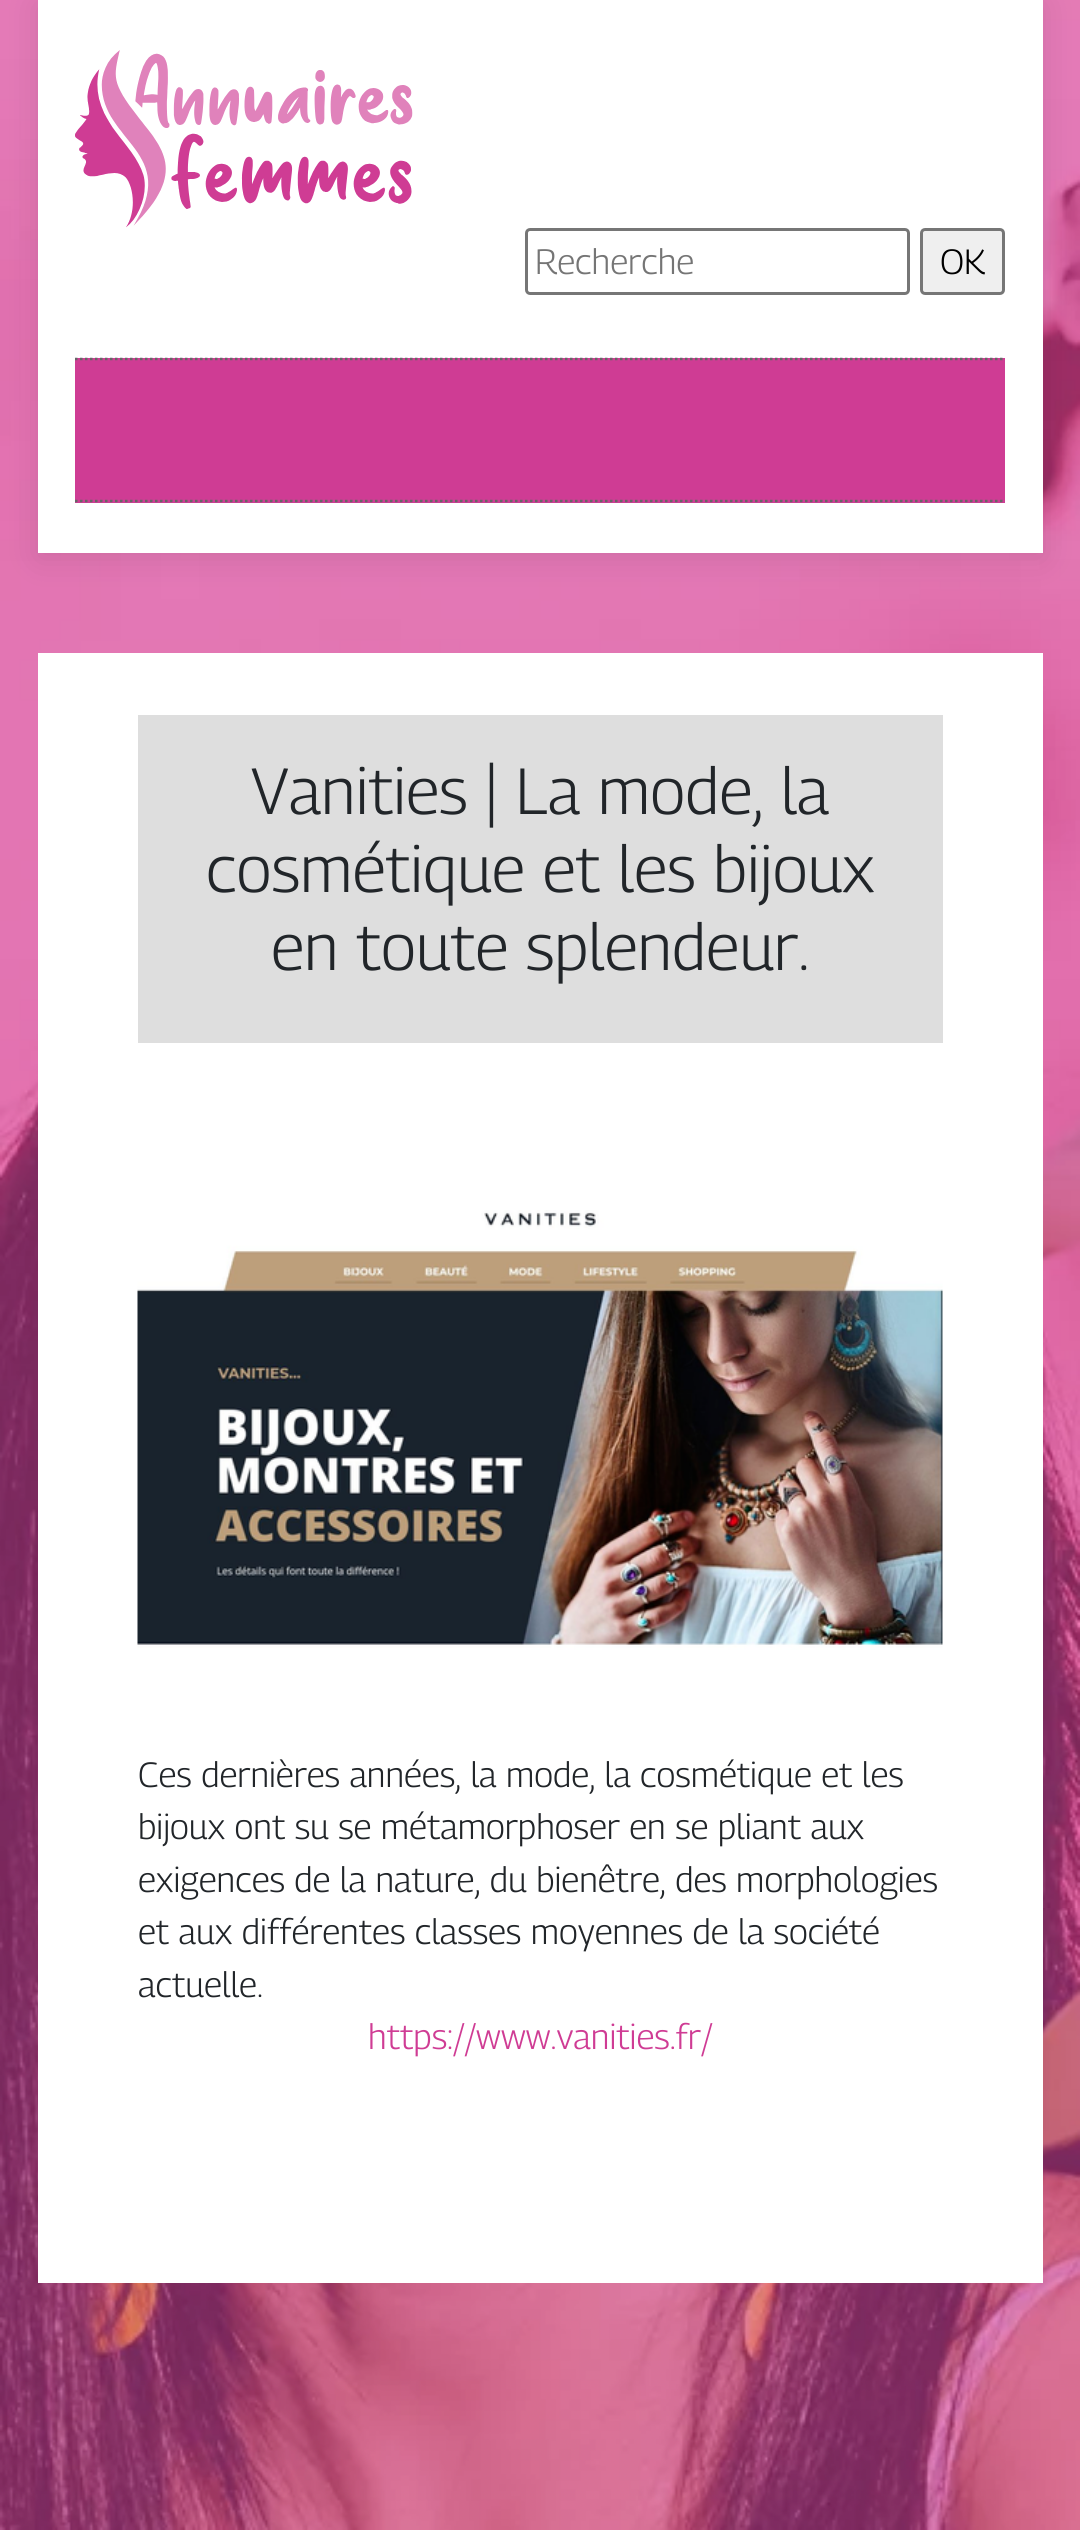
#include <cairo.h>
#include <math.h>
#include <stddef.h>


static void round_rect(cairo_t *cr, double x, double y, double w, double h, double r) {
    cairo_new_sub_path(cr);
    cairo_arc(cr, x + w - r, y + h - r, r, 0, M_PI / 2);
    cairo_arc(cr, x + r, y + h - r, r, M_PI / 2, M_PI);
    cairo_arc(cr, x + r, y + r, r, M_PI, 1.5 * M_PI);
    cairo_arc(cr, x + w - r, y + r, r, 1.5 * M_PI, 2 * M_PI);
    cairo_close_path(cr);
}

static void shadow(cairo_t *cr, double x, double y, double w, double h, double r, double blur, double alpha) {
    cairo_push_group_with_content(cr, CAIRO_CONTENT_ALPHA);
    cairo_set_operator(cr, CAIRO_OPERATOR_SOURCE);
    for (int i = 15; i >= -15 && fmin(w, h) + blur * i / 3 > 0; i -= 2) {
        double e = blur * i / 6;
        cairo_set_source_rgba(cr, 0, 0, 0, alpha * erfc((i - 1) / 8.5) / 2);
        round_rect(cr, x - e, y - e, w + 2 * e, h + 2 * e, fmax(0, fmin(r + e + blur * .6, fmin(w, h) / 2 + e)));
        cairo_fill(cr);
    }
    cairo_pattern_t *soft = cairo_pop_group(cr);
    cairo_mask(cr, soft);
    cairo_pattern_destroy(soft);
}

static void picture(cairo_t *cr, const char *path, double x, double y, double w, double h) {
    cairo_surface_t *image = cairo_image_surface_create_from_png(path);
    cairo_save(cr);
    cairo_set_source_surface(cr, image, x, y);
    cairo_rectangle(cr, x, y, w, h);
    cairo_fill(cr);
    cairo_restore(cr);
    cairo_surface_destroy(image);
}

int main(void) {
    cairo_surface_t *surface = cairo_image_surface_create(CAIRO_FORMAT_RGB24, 1080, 2530);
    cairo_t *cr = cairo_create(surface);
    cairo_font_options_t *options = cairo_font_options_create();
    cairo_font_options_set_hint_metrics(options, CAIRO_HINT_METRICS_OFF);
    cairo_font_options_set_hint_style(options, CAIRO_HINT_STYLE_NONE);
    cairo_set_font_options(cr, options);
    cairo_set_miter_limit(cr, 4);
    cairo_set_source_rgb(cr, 1, 1, 1);
    cairo_paint(cr);
    picture(cr, "img1.png", 0, 0, 1080, 2530);
    cairo_set_source_rgb(cr, 0, 0, 0);
    shadow(cr, 38, 5, 1005, 553, 0, 16, 0.1);
    cairo_set_source_rgb(cr, 1, 1, 1);
    cairo_rectangle(cr, 38, 0, 1005, 553);
    cairo_fill(cr);
    picture(cr, "img2.png", 75, 50, 338, 178);
    round_rect(cr, 526.5, 229.5, 382, 64, 3.5);
    cairo_set_source_rgb(cr, 0.463, 0.463, 0.463);
    cairo_set_line_width(cr, 3);
    cairo_stroke(cr);
    cairo_select_font_face(cr, "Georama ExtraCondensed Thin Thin", CAIRO_FONT_SLANT_NORMAL, CAIRO_FONT_WEIGHT_NORMAL);
    cairo_set_font_size(cr, 35);
    cairo_set_source_rgb(cr, 0.459, 0.459, 0.459);
    cairo_move_to(cr, 535, 274);
    cairo_show_text(cr, "Recherche");
    cairo_set_source_rgb(cr, 0.937, 0.937, 0.937);
    round_rect(cr, 921.5, 229.5, 82, 64, 3.5);
    cairo_fill_preserve(cr);
    cairo_set_source_rgb(cr, 0.463, 0.463, 0.463);
    cairo_stroke(cr);
    cairo_set_source_rgb(cr, 0, 0, 0);
    cairo_move_to(cr, 940, 274);
    cairo_show_text(cr, "OK");
    cairo_set_source_rgb(cr, 0.812, 0.235, 0.58);
    cairo_rectangle(cr, 75, 358, 930, 145);
    cairo_fill(cr);
    cairo_new_path(cr);
    cairo_move_to(cr, 75, 359);
    cairo_line_to(cr, 1005, 359);
    cairo_set_source_rgb(cr, 0.4, 0.4, 0.4);
    cairo_set_line_width(cr, 2.5);
    cairo_set_dash(cr, (double[]){2.5, 2.5}, 2, 0);
    cairo_stroke(cr);
    cairo_new_path(cr);
    cairo_move_to(cr, 75, 501);
    cairo_line_to(cr, 1005, 501);
    cairo_stroke(cr);
    cairo_set_source_rgb(cr, 1, 1, 1);
    cairo_rectangle(cr, 38, 653, 1005, 1630);
    cairo_fill(cr);
    cairo_set_source_rgb(cr, 0.871, 0.871, 0.871);
    cairo_rectangle(cr, 138, 715, 805, 328);
    cairo_fill(cr);
    cairo_set_font_size(cr, 65);
    cairo_set_source_rgb(cr, 0.129, 0.145, 0.161);
    cairo_move_to(cr, 251, 814);
    cairo_show_text(cr, "Vanities | La mode, la");
    cairo_move_to(cr, 206, 892);
    cairo_show_text(cr, "cosmétique et les bijoux");
    cairo_move_to(cr, 271, 970);
    cairo_show_text(cr, "en toute splendeur.");
    picture(cr, "img3.png", 137, 1210, 806, 440);
    cairo_set_font_size(cr, 35);
    cairo_move_to(cr, 138, 1787);
    cairo_show_text(cr, "Ces dernières années, la mode, la cosmétique et les");
    cairo_move_to(cr, 138, 1839);
    cairo_show_text(cr, "bijoux ont su se métamorphoser en se pliant aux");
    cairo_move_to(cr, 138, 1892);
    cairo_show_text(cr, "exigences de la nature, du bienêtre, des morphologies");
    cairo_move_to(cr, 138, 1944);
    cairo_show_text(cr, "et aux différentes classes moyennes de la société");
    cairo_move_to(cr, 138, 1997);
    cairo_show_text(cr, "actuelle.");
    cairo_set_source_rgb(cr, 0.812, 0.235, 0.58);
    cairo_move_to(cr, 368, 2049);
    cairo_show_text(cr, "https://www.vanities.fr/");
    cairo_surface_write_to_png(surface, "page.png");
    cairo_font_options_destroy(options);
    cairo_destroy(cr);
    cairo_surface_destroy(surface);
    return 0;
}
